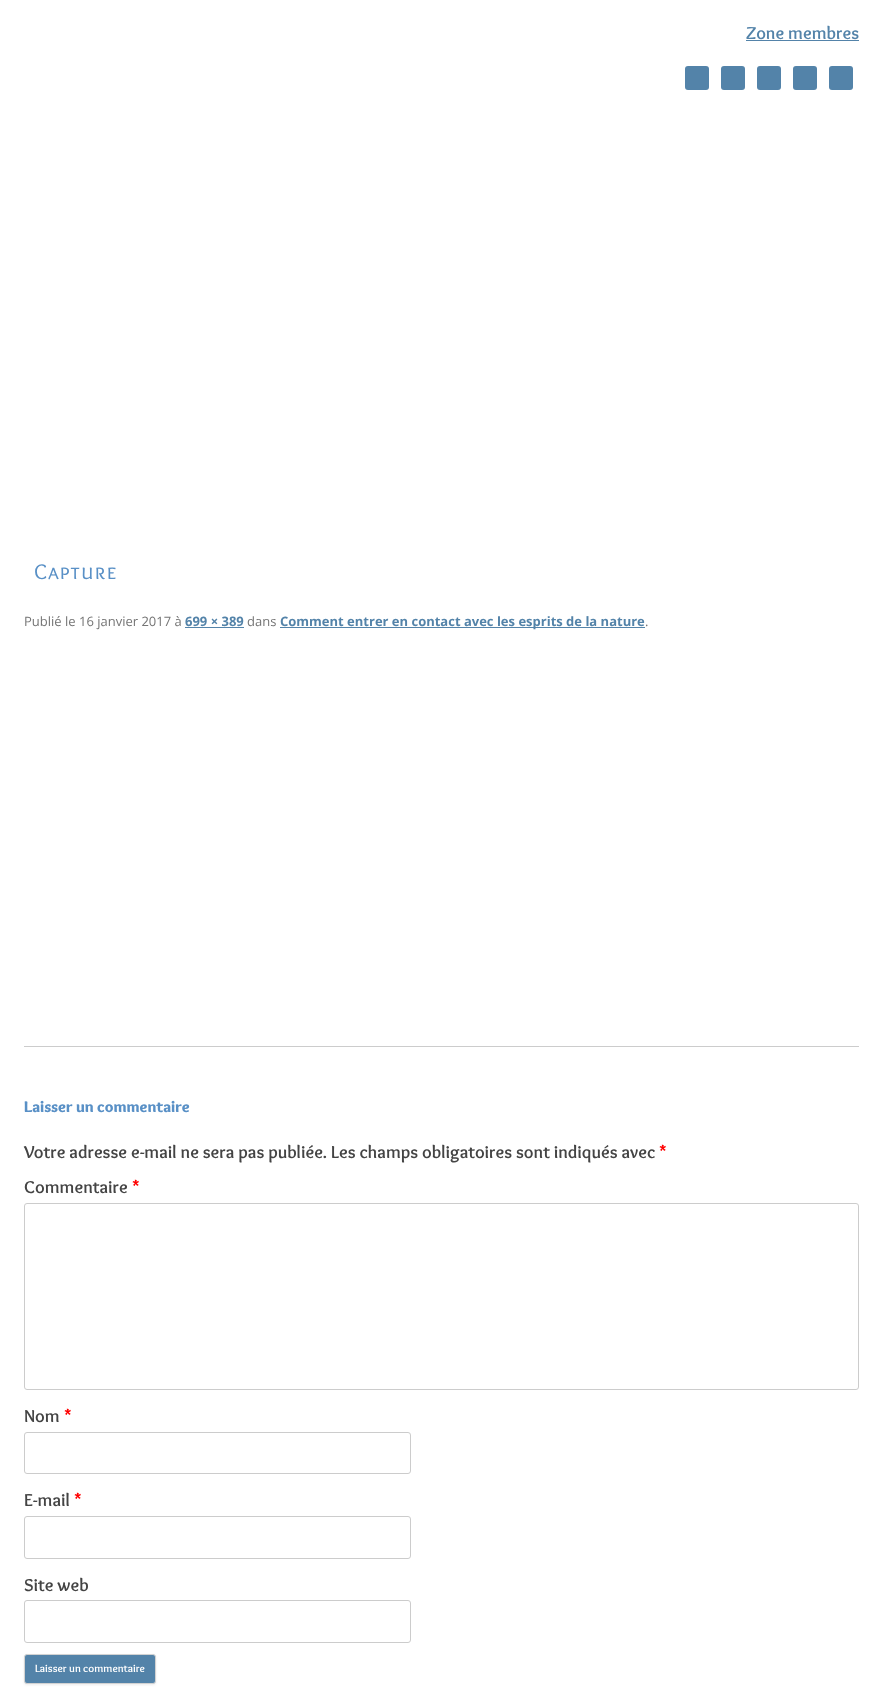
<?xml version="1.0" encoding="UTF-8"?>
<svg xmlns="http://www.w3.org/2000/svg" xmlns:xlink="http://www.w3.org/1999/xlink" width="883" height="1699">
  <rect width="100%" height="100%" fill="#ffffff" />
  <rect x="746" y="40" width="113" height="1" fill="#5383a9" />
  <rect x="685" y="66" width="24" height="24" rx="3" fill="#5383a9" />
  <rect x="721" y="66" width="24" height="24" rx="3" fill="#5383a9" />
  <rect x="757" y="66" width="24" height="24" rx="3" fill="#5383a9" />
  <rect x="793" y="66" width="24" height="24" rx="3" fill="#5383a9" />
  <rect x="829" y="66" width="24" height="24" rx="3" fill="#5383a9" />
  <rect x="24" y="1046" width="835" height="1" fill="#cccccc" />
  <rect x="185" y="627" width="59" height="1" fill="#5383a9" />
  <rect x="280" y="627" width="365" height="1" fill="#5383a9" />
  <rect x="24.5" y="1203.5" width="834" height="186" rx="2.5" fill="none" stroke="#cccccc" />
  <rect x="24.5" y="1432.5" width="386" height="41" rx="2.5" fill="none" stroke="#cccccc" />
  <rect x="24.5" y="1516.5" width="386" height="42" rx="2.5" fill="none" stroke="#cccccc" />
  <rect x="24.5" y="1600.5" width="386" height="42" rx="2.5" fill="none" stroke="#cccccc" />
  <rect x="24" y="1655" width="132" height="30" rx="3" fill="#404040" fill-opacity="0.1" filter="blur(1px)" />
  <rect x="24.5" y="1654.5" width="131" height="29" rx="2.5" fill="#5383a9" stroke="#d2d2d2" />
  <text x="746" y="39" style="font-family: Overlock; font-size: 18px; font-weight: bold; fill: #5383a9">Zone membres</text>
  <text x="34" y="579" style="font-family: Overlock SC; font-size: 22px; letter-spacing: 1px; fill: #5990c6">Capture</text>
  <text x="24" y="626" style="font-family: Open Sans; font-size: 13px; fill: #757575">Publié le 16 janvier 2017 à</text>
  <text x="185" y="626" style="font-family: Open Sans; font-size: 13px; font-weight: bold; fill: #5383a9">699 × 389</text>
  <text x="247" y="626" style="font-family: Open Sans; font-size: 13px; fill: #757575">dans</text>
  <text x="280" y="626" style="font-family: Open Sans; font-size: 13px; font-weight: bold; fill: #5383a9">Comment entrer en contact avec les esprits de la nature</text>
  <text x="645" y="626" style="font-family: Open Sans; font-size: 13px; fill: #757575">.</text>
  <text x="24" y="1112" style="font-family: Overlock; font-size: 16px; font-weight: 900; fill: #5990c6">Laisser un commentaire</text>
  <text x="24" y="1158" style="font-family: Overlock; font-size: 18px; font-weight: bold; fill: #444444">Votre adresse e-mail ne sera pas publiée. Les champs obligatoires sont indiqués avec</text>
  <text x="659" y="1158" style="font-family: Overlock; font-size: 18px; font-weight: bold; fill: #ff0000">*</text>
  <text x="24" y="1193" style="font-family: Overlock; font-size: 18px; font-weight: bold; fill: #444444">Commentaire</text>
  <text x="132" y="1193" style="font-family: Overlock; font-size: 18px; font-weight: bold; fill: #ff0000">*</text>
  <text x="24" y="1422" style="font-family: Overlock; font-size: 18px; font-weight: bold; fill: #444444">Nom</text>
  <text x="64" y="1422" style="font-family: Overlock; font-size: 18px; font-weight: bold; fill: #ff0000">*</text>
  <text x="24" y="1506" style="font-family: Overlock; font-size: 18px; font-weight: bold; fill: #444444">E-mail</text>
  <text x="74" y="1506" style="font-family: Overlock; font-size: 18px; font-weight: bold; fill: #ff0000">*</text>
  <text x="24" y="1591" style="font-family: Overlock; font-size: 18px; font-weight: bold; fill: #444444">Site web</text>
  <text x="35" y="1672" style="font-family: Overlock; font-size: 11px; font-weight: bold; fill: #ffffff">Laisser un commentaire</text>
</svg>
